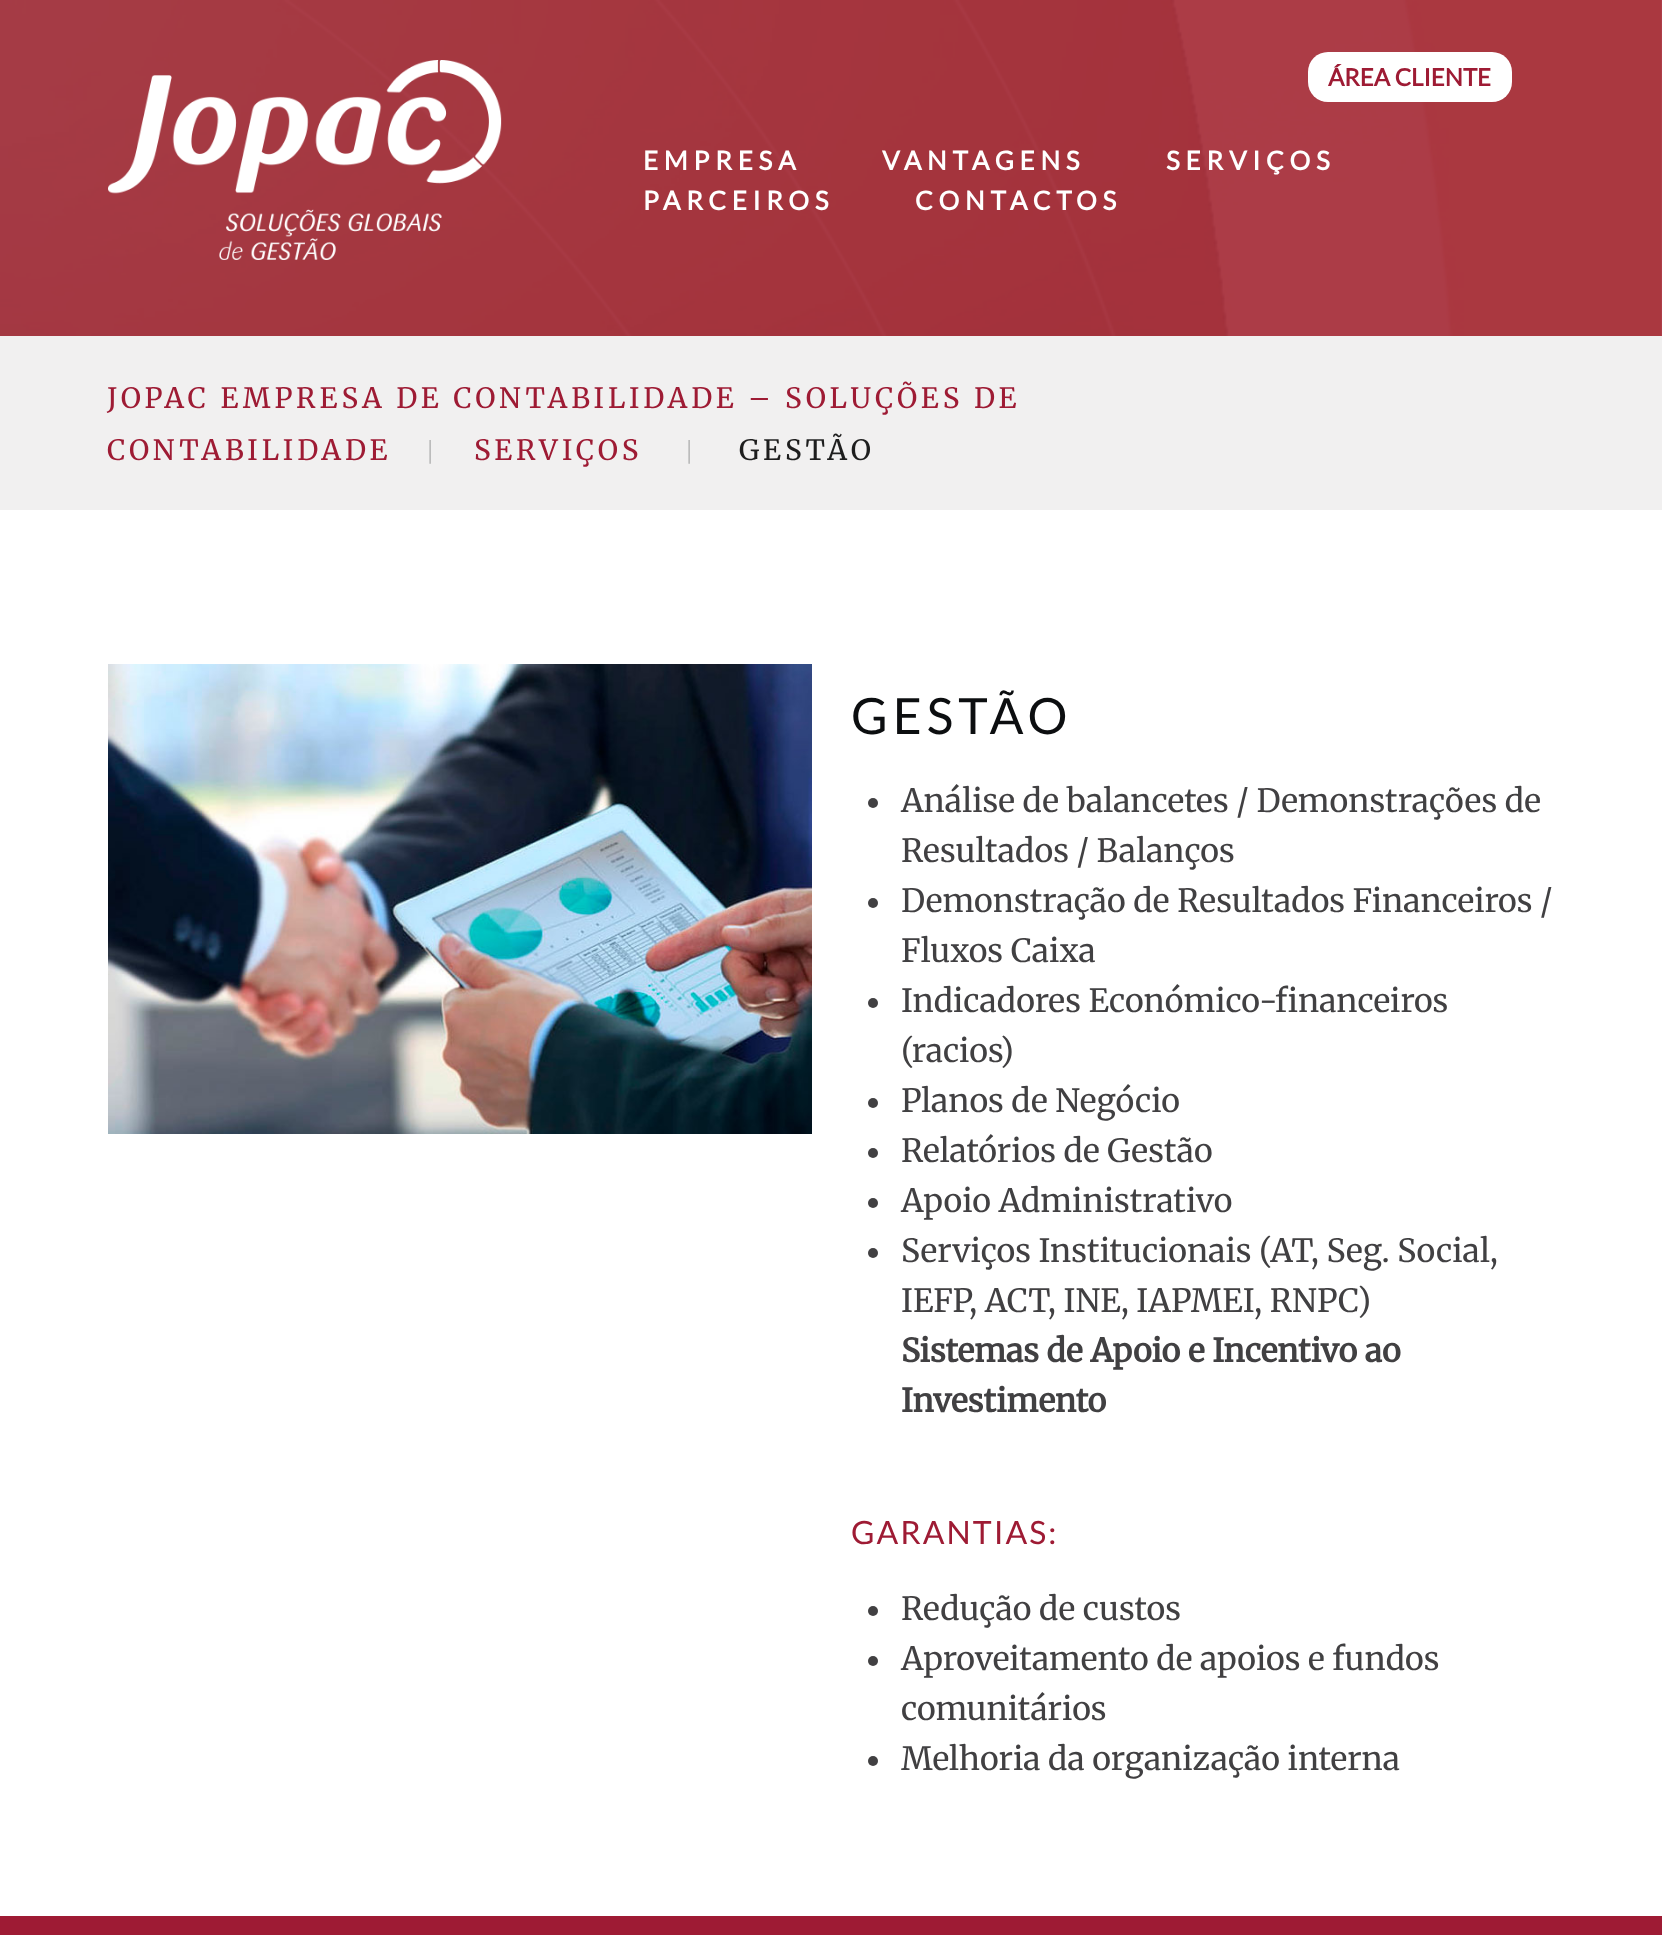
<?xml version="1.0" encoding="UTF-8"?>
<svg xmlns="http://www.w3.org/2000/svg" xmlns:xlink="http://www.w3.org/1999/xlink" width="1662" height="1935">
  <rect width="100%" height="100%" fill="#ffffff" />
  <image x="0" y="0" width="1662" height="336" xlink:href="image1.png" />
  <rect width="1662" height="336" fill="#a11e32" fill-opacity="0.8" />
  <rect x="1308" y="52" width="204" height="50" rx="20" fill="#ffffff" />
  <image x="108" y="60" width="394" height="200" xlink:href="image2.png" />
  <rect y="336" width="108" height="174" fill="#f1f0f0" />
  <rect x="108" y="336" width="1554" height="174" fill="#f1f0f0" />
  <image x="108" y="664" width="704" height="470" xlink:href="image3.png" />
  <circle cx="873" cy="803" r="5" fill="#414042" />
  <circle cx="873" cy="903" r="5" fill="#414042" />
  <circle cx="873" cy="1003" r="5" fill="#414042" />
  <circle cx="873" cy="1103" r="5" fill="#414042" />
  <circle cx="873" cy="1153" r="5" fill="#414042" />
  <circle cx="873" cy="1203" r="5" fill="#414042" />
  <circle cx="873" cy="1253" r="5" fill="#414042" />
  <circle cx="873" cy="1611" r="5" fill="#414042" />
  <circle cx="873" cy="1661" r="5" fill="#414042" />
  <circle cx="873" cy="1761" r="5" fill="#414042" />
  <rect y="1916" width="1662" height="19" fill="#9e1b34" />
  <text x="1328" y="86" style="font-family: Lato; font-size: 24px; font-weight: bold; fill: #9e1b34">ÁREA CLIENTE</text>
  <text x="643" y="170" style="font-family: Lato; font-size: 26px; font-weight: bold; letter-spacing: 5.75px; fill: #ffffff">EMPRESA</text>
  <text x="882" y="170" style="font-family: Lato; font-size: 26px; font-weight: bold; letter-spacing: 5.75px; fill: #ffffff">VANTAGENS</text>
  <text x="1166" y="170" style="font-family: Lato; font-size: 26px; font-weight: bold; letter-spacing: 5.75px; fill: #ffffff">SERVIÇOS</text>
  <text x="643" y="210" style="font-family: Lato; font-size: 26px; font-weight: bold; letter-spacing: 5.75px; fill: #ffffff">PARCEIROS</text>
  <text x="915" y="210" style="font-family: Lato; font-size: 26px; font-weight: bold; letter-spacing: 5.75px; fill: #ffffff">CONTACTOS</text>
  <text x="107" y="408" style="font-family: Merriweather; font-size: 28px; font-weight: 300; letter-spacing: 4px; fill: #9e1b34">JOPAC EMPRESA DE CONTABILIDADE – SOLUÇÕES DE</text>
  <text x="107" y="460" style="font-family: Merriweather; font-size: 28px; font-weight: 300; letter-spacing: 4px; fill: #9e1b34">CONTABILIDADE</text>
  <text x="427" y="460" style="font-family: Roboto Condensed; font-size: 28px; font-weight: 300; letter-spacing: 4px; fill: #b4b4b4">|</text>
  <text x="474" y="460" style="font-family: Merriweather; font-size: 28px; font-weight: 300; letter-spacing: 4px; fill: #9e1b34">SERVIÇOS</text>
  <text x="686" y="460" style="font-family: Roboto Condensed; font-size: 28px; font-weight: 300; letter-spacing: 4px; fill: #b4b4b4">|</text>
  <text x="739" y="460" style="font-family: Merriweather; font-size: 28px; font-weight: 300; letter-spacing: 4px; fill: #1e1e1e">GESTÃO</text>
  <text x="851" y="734" style="font-family: Lato; font-size: 50px; letter-spacing: 5px; fill: #0c0e10">GESTÃO</text>
  <text x="901" y="812" style="font-family: Merriweather; font-size: 32px; font-weight: 300; fill: #414042">Análise de balancetes / Demonstrações de</text>
  <text x="901" y="862" style="font-family: Merriweather; font-size: 32px; font-weight: 300; fill: #414042">Resultados / Balanços</text>
  <text x="901" y="912" style="font-family: Merriweather; font-size: 32px; font-weight: 300; fill: #414042">Demonstração de Resultados Financeiros /</text>
  <text x="901" y="962" style="font-family: Merriweather; font-size: 32px; font-weight: 300; fill: #414042">Fluxos Caixa</text>
  <text x="901" y="1012" style="font-family: Merriweather; font-size: 32px; font-weight: 300; fill: #414042">Indicadores Económico-financeiros</text>
  <text x="901" y="1062" style="font-family: Merriweather; font-size: 32px; font-weight: 300; fill: #414042">(racios)</text>
  <text x="901" y="1112" style="font-family: Merriweather; font-size: 32px; font-weight: 300; fill: #414042">Planos de Negócio</text>
  <text x="901" y="1162" style="font-family: Merriweather; font-size: 32px; font-weight: 300; fill: #414042">Relatórios de Gestão</text>
  <text x="901" y="1212" style="font-family: Merriweather; font-size: 32px; font-weight: 300; fill: #414042">Apoio Administrativo</text>
  <text x="901" y="1262" style="font-family: Merriweather; font-size: 32px; font-weight: 300; fill: #414042">Serviços Institucionais (AT, Seg. Social,</text>
  <text x="901" y="1312" style="font-family: Merriweather; font-size: 32px; font-weight: 300; fill: #414042">IEFP, ACT, INE, IAPMEI, RNPC)</text>
  <text x="901" y="1362" style="font-family: Merriweather; font-size: 32px; font-weight: bold; fill: #414042">Sistemas de Apoio e Incentivo ao</text>
  <text x="901" y="1412" style="font-family: Merriweather; font-size: 32px; font-weight: bold; fill: #414042">Investimento</text>
  <text x="851" y="1544" style="font-family: Lato; font-size: 32px; letter-spacing: 2px; fill: #9e1b34">GARANTIAS:</text>
  <text x="901" y="1620" style="font-family: Merriweather; font-size: 32px; font-weight: 300; fill: #414042">Redução de custos</text>
  <text x="901" y="1670" style="font-family: Merriweather; font-size: 32px; font-weight: 300; fill: #414042">Aproveitamento de apoios e fundos</text>
  <text x="901" y="1720" style="font-family: Merriweather; font-size: 32px; font-weight: 300; fill: #414042">comunitários</text>
  <text x="901" y="1770" style="font-family: Merriweather; font-size: 32px; font-weight: 300; fill: #414042">Melhoria da organização interna</text>
</svg>
